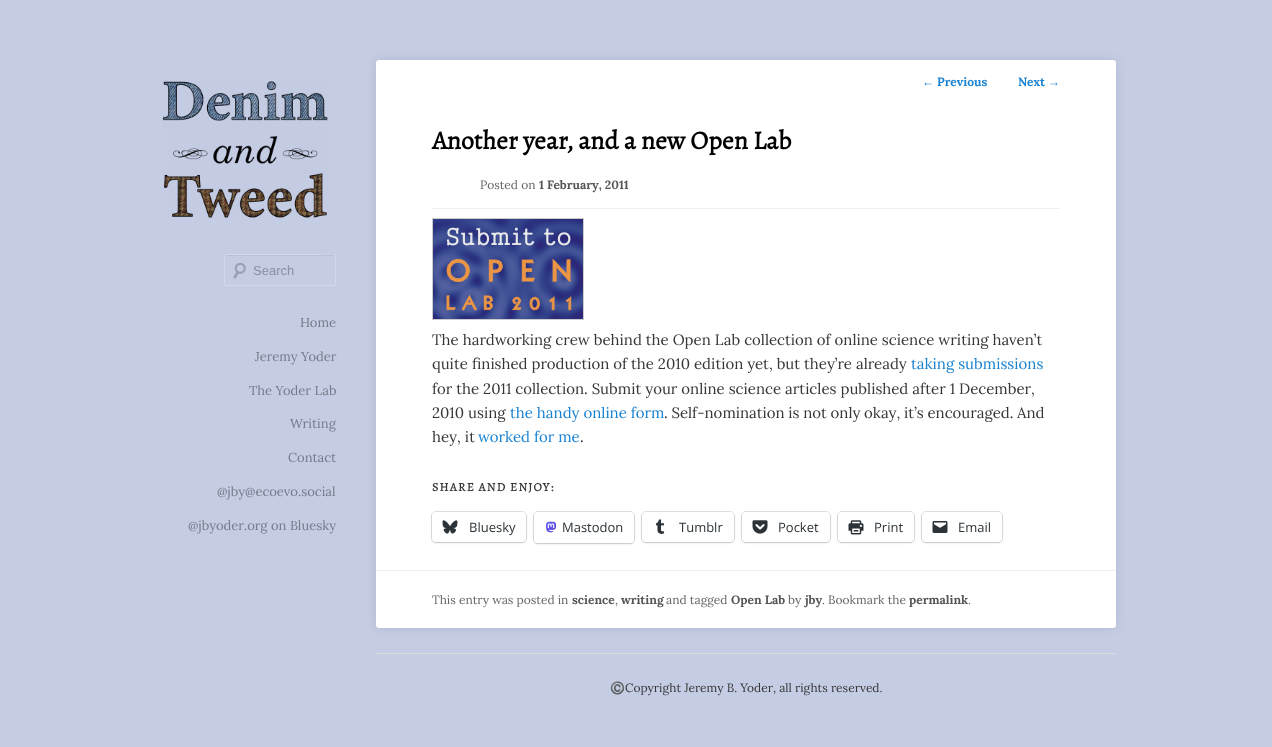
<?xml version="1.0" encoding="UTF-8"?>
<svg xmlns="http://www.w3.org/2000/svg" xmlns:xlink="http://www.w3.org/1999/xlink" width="1272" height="747">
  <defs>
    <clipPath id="clip1"><rect x="156" y="254" width="180" height="32" /></clipPath>
  </defs>
  <rect width="100%" height="100%" fill="#c5cde5" />
  <image x="163" y="81" width="165" height="137" xlink:href="image1.png" />
  <image x="233" y="262" width="13" height="17" xlink:href="image2.png" />
  <g clip-path="url(#clip1)">
    <path d="M 226 256 h 109 v 1 c 0 -7 -15 -2 -19 -2 h -90 l -1 2 c 0 -1 0 -1 1 -1 z" fill="#b9c1d7" />
  </g>
  <rect x="224.5" y="254.5" width="111" height="31" rx="1.5" fill="none" stroke="#e8ebf5" stroke-opacity="0.4" />
  <rect x="376" y="60" width="740" height="568" rx="3" fill="#000000" fill-opacity="0.1" filter="blur(5px)" />
  <rect x="376" y="60" width="740" height="568" rx="3" fill="#ffffff" />
  <rect x="432" y="208" width="628" height="1" fill="#eeeeee" />
  <rect x="376" y="570" width="740" height="1" fill="#eeeeee" />
  <rect x="432.5" y="218.5" width="151" height="101" fill="none" stroke="#cccccc" />
  <image x="433" y="219" width="150" height="100" xlink:href="image3.png" />
  <rect x="431.5" y="511.5" width="95" height="31" rx="4.5" fill="none" stroke="#e0e0e0" />
  <rect x="432" y="513" width="94" height="30" rx="4" fill="#000000" fill-opacity="0.12" filter="blur(1px)" />
  <rect x="432" y="512" width="94" height="30" rx="4" fill="#ffffff" />
  <image x="442" y="520" width="16" height="14" xlink:href="image4.png" />
  <rect x="533.5" y="511.5" width="101" height="32" rx="4.5" fill="none" stroke="#e0e0e0" />
  <rect x="534" y="513" width="100" height="31" rx="4" fill="#000000" fill-opacity="0.12" filter="blur(1px)" />
  <rect x="534" y="512" width="100" height="31" rx="4" fill="#ffffff" />
  <image x="546" y="521" width="10" height="12" xlink:href="image5.png" />
  <rect x="641.5" y="511.5" width="93" height="31" rx="4.5" fill="none" stroke="#e0e0e0" />
  <rect x="642" y="513" width="92" height="30" rx="4" fill="#000000" fill-opacity="0.12" filter="blur(1px)" />
  <rect x="642" y="512" width="92" height="30" rx="4" fill="#ffffff" />
  <image x="655" y="519" width="10" height="15" xlink:href="image6.png" />
  <rect x="741.5" y="511.5" width="89" height="31" rx="4.5" fill="none" stroke="#e0e0e0" />
  <rect x="742" y="513" width="88" height="30" rx="4" fill="#000000" fill-opacity="0.12" filter="blur(1px)" />
  <rect x="742" y="512" width="88" height="30" rx="4" fill="#ffffff" />
  <image x="752" y="520" width="16" height="14" xlink:href="image7.png" />
  <rect x="837.5" y="511.5" width="77" height="31" rx="4.5" fill="none" stroke="#e0e0e0" />
  <rect x="838" y="513" width="76" height="30" rx="4" fill="#000000" fill-opacity="0.12" filter="blur(1px)" />
  <rect x="838" y="512" width="76" height="30" rx="4" fill="#ffffff" />
  <image x="848" y="520" width="16" height="15" xlink:href="image8.png" />
  <rect x="921.5" y="511.5" width="81" height="31" rx="4.5" fill="none" stroke="#e0e0e0" />
  <rect x="922" y="513" width="80" height="30" rx="4" fill="#000000" fill-opacity="0.12" filter="blur(1px)" />
  <rect x="922" y="512" width="80" height="30" rx="4" fill="#ffffff" />
  <image x="932" y="521" width="16" height="12" xlink:href="image9.png" />
  <rect x="376" y="653" width="740" height="1" fill="#dddddd" />
  <text x="253" y="275" style="font-family: Liberation Sans; font-size: 13px; fill: #8a90a1">Search</text>
  <text x="300" y="327" style="font-family: Lora; font-size: 13px; fill: #767b89">Home</text>
  <text x="255" y="361" style="font-family: Lora; font-size: 13px; fill: #767b89">Jeremy Yoder</text>
  <text x="249" y="395" style="font-family: Lora; font-size: 13px; fill: #767b89">The Yoder Lab</text>
  <text x="290" y="428" style="font-family: Lora; font-size: 13px; fill: #767b89">Writing</text>
  <text x="288" y="462" style="font-family: Lora; font-size: 13px; fill: #767b89">Contact</text>
  <text x="217" y="496" style="font-family: Lora; font-size: 13px; fill: #767b89">@jby@ecoevo.social</text>
  <text x="188" y="530" style="font-family: Lora; font-size: 13px; fill: #767b89">@jbyoder.org on Bluesky</text>
  <text x="922" y="86" style="font-family: Liberation Sans; font-size: 12px; fill: #1982d1">←</text>
  <text x="937" y="86" style="font-family: Lora; font-size: 12px; font-weight: bold; fill: #1982d1">Previous</text>
  <text x="1018" y="86" style="font-family: Lora; font-size: 12px; font-weight: bold; fill: #1982d1">Next</text>
  <text x="1048" y="86" style="font-family: Liberation Sans; font-size: 12px; fill: #1982d1">→</text>
  <text x="432" y="149" style="font-family: Alegreya; font-size: 26px; font-weight: bold; fill: #000000">Another year, and a new Open Lab</text>
  <text x="480" y="189" style="font-family: Lora; font-size: 12px; fill: #666666">Posted on</text>
  <text x="539" y="189" style="font-family: Lora; font-size: 12px; font-weight: bold; fill: #555555">1 February, 2011</text>
  <text x="432" y="345" style="font-family: Lora; font-size: 15px; fill: #373737">The hardworking crew behind the Open Lab collection of online science writing haven’t</text>
  <text x="432" y="369" style="font-family: Lora; font-size: 15px; fill: #373737">quite finished production of the 2010 edition yet, but they’re already</text>
  <text x="911" y="369" style="font-family: Lora; font-size: 15px; fill: #1982d1">taking submissions</text>
  <text x="432" y="394" style="font-family: Lora; font-size: 15px; fill: #373737">for the 2011 collection. Submit your online science articles published after 1 December,</text>
  <text x="432" y="418" style="font-family: Lora; font-size: 15px; fill: #373737">2010 using</text>
  <text x="510" y="418" style="font-family: Lora; font-size: 15px; fill: #1982d1">the handy online form</text>
  <text x="664" y="418" word-spacing="-0.25" style="font-family: Lora; font-size: 15px; fill: #373737">. Self-nomination is not only okay, it’s encouraged. And</text>
  <text x="432" y="442" style="font-family: Lora; font-size: 15px; fill: #373737">hey, it</text>
  <text x="478" y="442" style="font-family: Lora; font-size: 15px; fill: #1982d1">worked for me</text>
  <text x="580" y="442" style="font-family: Lora; font-size: 15px; fill: #373737">.</text>
  <text x="432" y="491" style="font-family: Alegreya; font-size: 12px; font-weight: bold; letter-spacing: 1.25px; fill: #373737">SHARE AND ENJOY:</text>
  <text x="469" y="532" style="font-family: Open Sans; font-size: 13px; fill: #2c3338">Bluesky</text>
  <text x="562" y="532" style="font-family: Open Sans; font-size: 13px; fill: #2c3338">Mastodon</text>
  <text x="679" y="532" style="font-family: Open Sans; font-size: 13px; fill: #2c3338">Tumblr</text>
  <text x="778" y="532" style="font-family: Open Sans; font-size: 13px; fill: #2c3338">Pocket</text>
  <text x="874" y="532" style="font-family: Open Sans; font-size: 13px; fill: #2c3338">Print</text>
  <text x="958" y="532" style="font-family: Open Sans; font-size: 13px; fill: #2c3338">Email</text>
  <text x="432" y="604" style="font-family: Lora; font-size: 12px; fill: #666666">This entry was posted in</text>
  <text x="572" y="604" style="font-family: Lora; font-size: 12px; font-weight: bold; fill: #555555">science</text>
  <text x="615" y="604" style="font-family: Lora; font-size: 12px; fill: #666666">,</text>
  <text x="621" y="604" style="font-family: Lora; font-size: 12px; font-weight: bold; fill: #555555">writing</text>
  <text x="666" y="604" style="font-family: Lora; font-size: 12px; fill: #666666">and tagged</text>
  <text x="731" y="604" style="font-family: Lora; font-size: 12px; font-weight: bold; fill: #555555">Open Lab</text>
  <text x="788" y="604" style="font-family: Lora; font-size: 12px; fill: #666666">by</text>
  <text x="805" y="604" style="font-family: Lora; font-size: 12px; font-weight: bold; fill: #555555">jby</text>
  <text x="822" y="604" style="font-family: Lora; font-size: 12px; fill: #666666">. Bookmark the</text>
  <text x="909" y="604" style="font-family: Lora; font-size: 12px; font-weight: bold; fill: #555555">permalink</text>
  <text x="968" y="604" style="font-family: Lora; font-size: 12px; fill: #666666">.</text>
  <text x="610" y="692" style="font-family: Noto Color Emoji; font-size: 12px; fill: #373737">©️</text>
  <text x="625" y="692" style="font-family: Lora; font-size: 12px; fill: #373737">Copyright Jeremy B. Yoder, all rights reserved.</text>
</svg>
